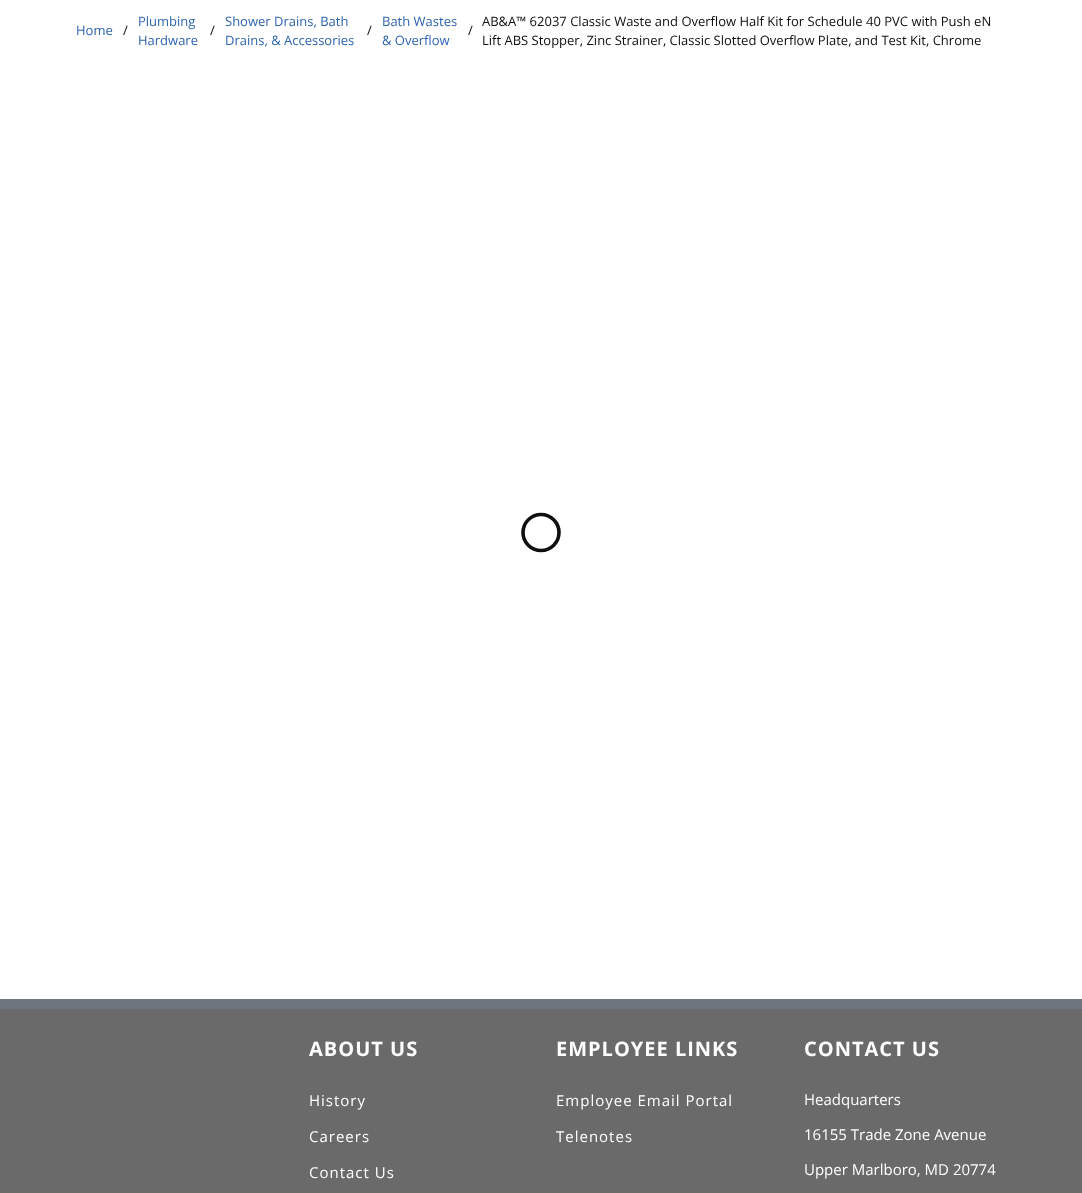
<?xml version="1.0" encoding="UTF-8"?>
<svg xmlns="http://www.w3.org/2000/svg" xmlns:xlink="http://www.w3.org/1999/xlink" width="1082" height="1193">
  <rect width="100%" height="100%" fill="#ffffff" />
  <path d="M 541 514.5 c 10 0 18 8 18 18 c 0 10 -8 18 -18 18 c -10 0 -18 -8 -18 -18 c 0 -9.5 7.5 -17.5 17 -18" fill="none" stroke="#0f0f0f" stroke-width="3.6" stroke-linecap="round" />
  <rect y="1009" width="1082" height="184" fill="#6a6a6a" />
  <rect y="999" width="1082" height="10" fill="#6c757d" />
  <text x="76" y="35" style="font-family: Open Sans; font-size: 13px; fill: #2e64b0">Home</text>
  <text x="123" y="35" style="font-family: Open Sans; font-size: 13px; fill: #0f0f0f">/</text>
  <text x="138" y="26" style="font-family: Open Sans; font-size: 13px; fill: #2e64b0">Plumbing</text>
  <text x="138" y="45" style="font-family: Open Sans; font-size: 13px; fill: #2e64b0">Hardware</text>
  <text x="210" y="35" style="font-family: Open Sans; font-size: 13px; fill: #0f0f0f">/</text>
  <text x="225" y="26" style="font-family: Open Sans; font-size: 13px; fill: #2e64b0">Shower Drains, Bath</text>
  <text x="225" y="45" style="font-family: Open Sans; font-size: 13px; fill: #2e64b0">Drains, &amp; Accessories</text>
  <text x="367" y="35" style="font-family: Open Sans; font-size: 13px; fill: #0f0f0f">/</text>
  <text x="382" y="26" style="font-family: Open Sans; font-size: 13px; fill: #2e64b0">Bath Wastes</text>
  <text x="382" y="45" style="font-family: Open Sans; font-size: 13px; fill: #2e64b0">&amp; Overflow</text>
  <text x="468" y="35" style="font-family: Open Sans; font-size: 13px; fill: #0f0f0f">/</text>
  <text x="482" y="26" style="font-family: Open Sans; font-size: 13px; fill: #0f0f0f">AB&amp;A™ 62037 Classic Waste and Overflow Half Kit for Schedule 40 PVC with Push eN</text>
  <text x="482" y="45" style="font-family: Open Sans; font-size: 13px; fill: #0f0f0f">Lift ABS Stopper, Zinc Strainer, Classic Slotted Overflow Plate, and Test Kit, Chrome</text>
  <text x="309" y="1056" style="font-family: Open Sans; font-size: 20px; font-weight: bold; letter-spacing: 1px; fill: #ffffff">ABOUT US</text>
  <text x="309" y="1106" style="font-family: Open Sans; font-size: 15px; letter-spacing: 1px; fill: #ffffff">History</text>
  <text x="309" y="1142" style="font-family: Open Sans; font-size: 15px; letter-spacing: 1px; fill: #ffffff">Careers</text>
  <text x="309" y="1178" style="font-family: Open Sans; font-size: 15px; letter-spacing: 1px; fill: #ffffff">Contact Us</text>
  <text x="556" y="1056" style="font-family: Open Sans; font-size: 20px; font-weight: bold; letter-spacing: 1px; fill: #ffffff">EMPLOYEE LINKS</text>
  <text x="556" y="1106" style="font-family: Open Sans; font-size: 15px; letter-spacing: 1px; fill: #ffffff">Employee Email Portal</text>
  <text x="556" y="1142" style="font-family: Open Sans; font-size: 15px; letter-spacing: 1px; fill: #ffffff">Telenotes</text>
  <text x="804" y="1056" style="font-family: Open Sans; font-size: 20px; font-weight: bold; letter-spacing: 1px; fill: #ffffff">CONTACT US</text>
  <text x="804" y="1105" style="font-family: Open Sans; font-size: 15px; fill: #ffffff">Headquarters</text>
  <text x="804" y="1140" style="font-family: Open Sans; font-size: 15px; fill: #ffffff">16155 Trade Zone Avenue</text>
  <text x="804" y="1175" style="font-family: Open Sans; font-size: 15px; fill: #ffffff">Upper Marlboro, MD 20774</text>
</svg>
